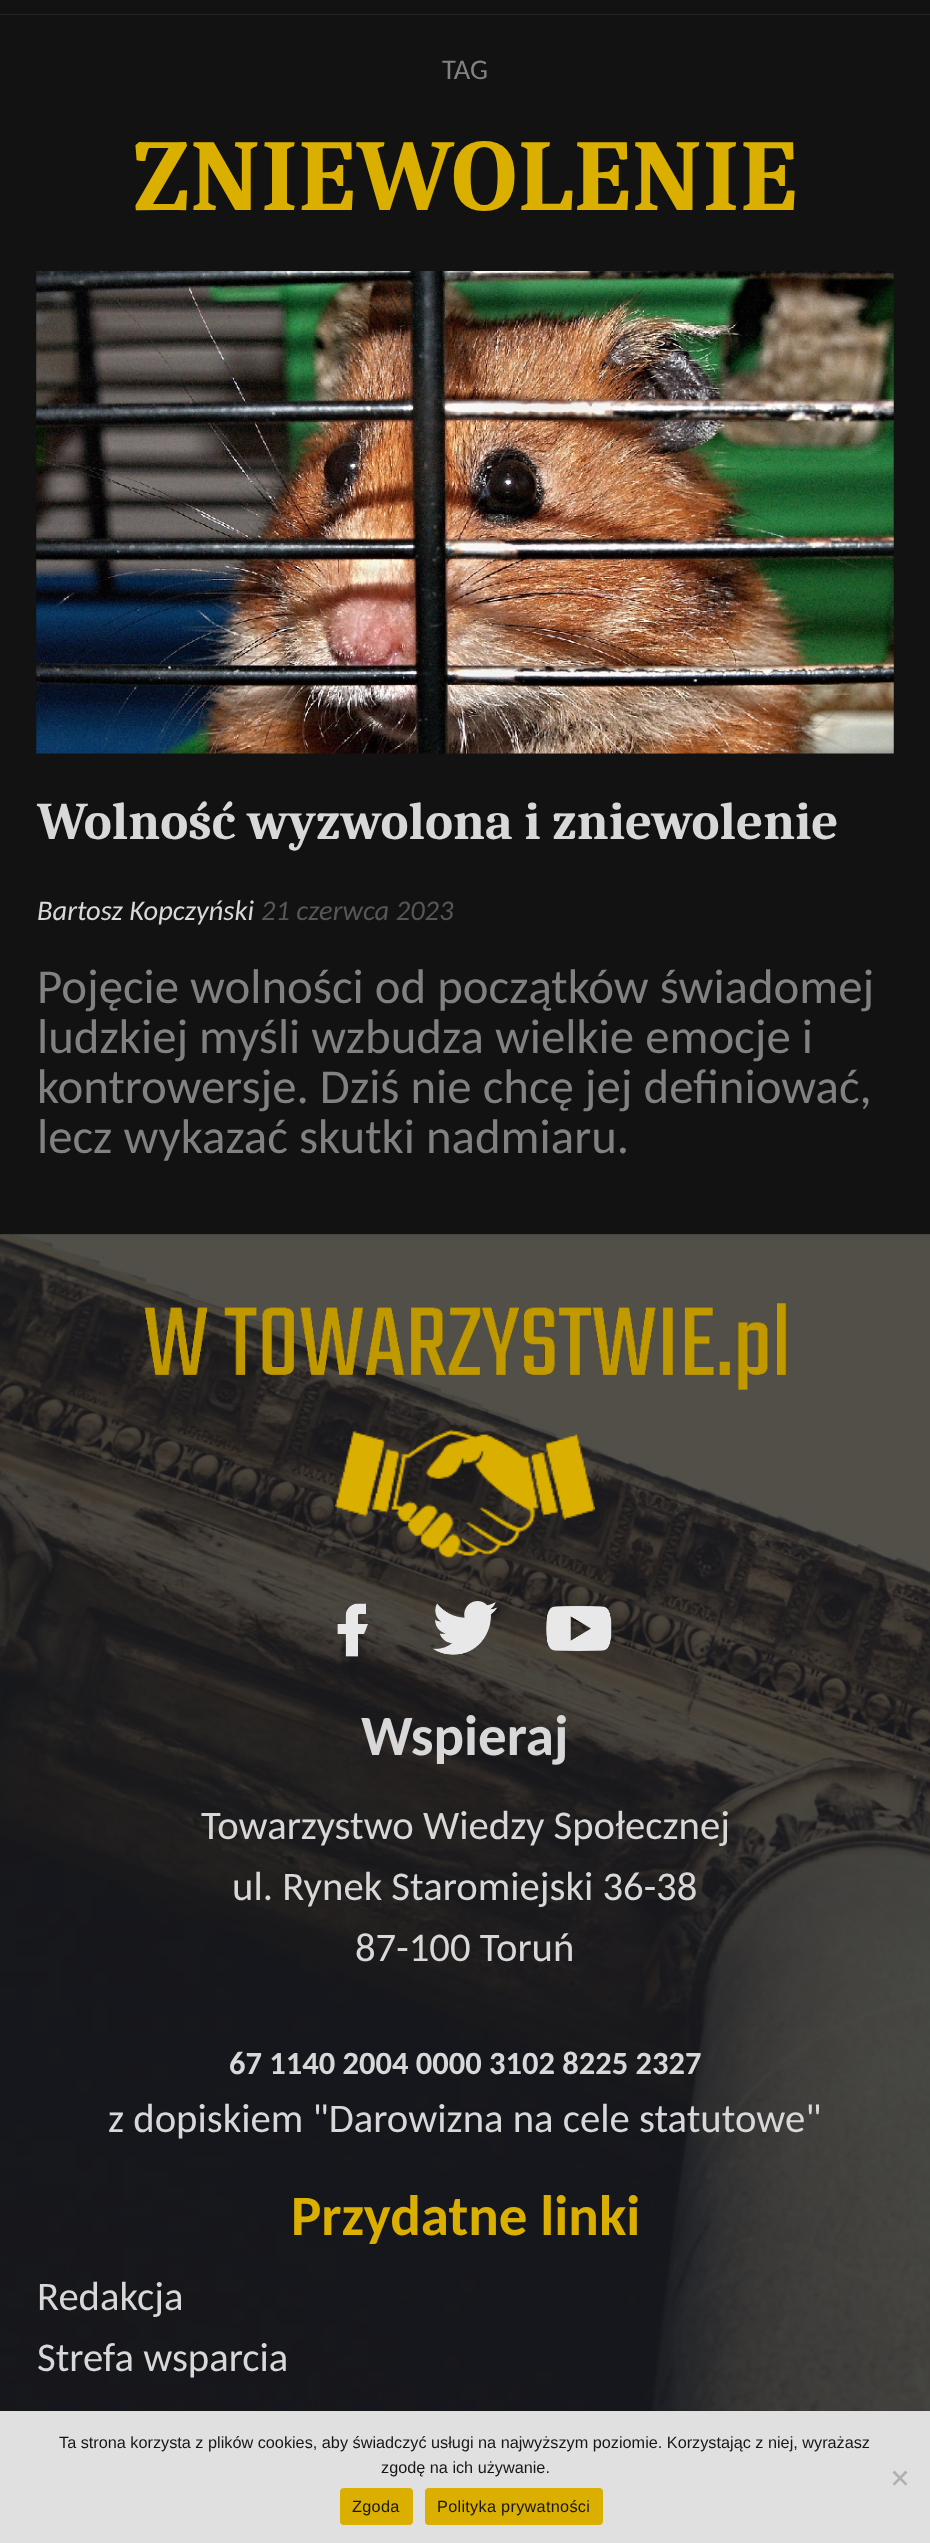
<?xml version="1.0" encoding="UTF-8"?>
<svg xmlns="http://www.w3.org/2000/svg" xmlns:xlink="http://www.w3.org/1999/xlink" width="930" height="2543">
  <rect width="100%" height="100%" fill="#121212" />
  <rect y="14" width="930" height="1" fill="#242424" />
  <image x="36" y="271" width="858" height="483" xlink:href="image1.png" />
  <image x="0" y="1234" width="930" height="1177" xlink:href="image2.png" />
  <image x="144" y="1303" width="643" height="87" xlink:href="image3.png" />
  <image x="335" y="1429" width="260" height="130" xlink:href="image4.png" />
  <image x="337" y="1603" width="31" height="54" xlink:href="image5.png" />
  <image x="432" y="1601" width="66" height="54" xlink:href="image6.png" />
  <image x="546" y="1606" width="66" height="45" xlink:href="image7.png" />
  <rect y="2411" width="930" height="132" fill="#e0e0e0" />
  <path d="M 905.5 2470.5 l 2 2 l -13 13 l -2 -1.5 z" fill="#b0b0b0" />
  <path d="M 892.5 2472.5 l 2 -2 l 13 13.5 l -2 1.5 z" fill="#b0b0b0" />
  <rect x="340" y="2488" width="73" height="37" rx="4" fill="#dbaf00" />
  <rect x="425" y="2488" width="178" height="37" rx="4" fill="#dbaf00" />
  <text x="442" y="79" style="font-family: Carlito; font-size: 28.5px; fill: #818181">TAG</text>
  <text x="133" y="210" style="font-family: Caladea; font-size: 101.75px; font-weight: bold; letter-spacing: 1px; fill: #dbaf00">ZNIEWOLENIE</text>
  <text x="37" y="839" style="font-family: Caladea; font-size: 52.9px; font-weight: bold; fill: #d8d8d8">Wolność wyzwolona i zniewolenie</text>
  <text x="37" y="920" style="font-family: Carlito; font-size: 28.5px; font-style: italic; fill: #d8d8d8">Bartosz Kopczyński</text>
  <text x="261" y="920" style="font-family: Carlito; font-size: 28.5px; font-style: italic; fill: #565656">21 czerwca 2023</text>
  <text x="37" y="1003" style="font-family: Carlito; font-size: 48.8px; fill: #818181">Pojęcie wolności od początków świadomej</text>
  <text x="37" y="1053" style="font-family: Carlito; font-size: 48.8px; fill: #818181">ludzkiej myśli wzbudza wielkie emocje i</text>
  <text x="37" y="1103" style="font-family: Carlito; font-size: 48.8px; fill: #818181">kontrowersje. Dziś nie chcę jej definiować,</text>
  <text x="37" y="1153" style="font-family: Carlito; font-size: 48.8px; fill: #818181">lecz wykazać skutki nadmiaru.</text>
  <text x="361" y="1755" style="font-family: Carlito; font-size: 57px; font-weight: bold; fill: #d8d8d8">Wspieraj</text>
  <text x="201" y="1839" style="font-family: Carlito; font-size: 40.7px; fill: #d8d8d8">Towarzystwo Wiedzy Społecznej</text>
  <text x="232" y="1900" style="font-family: Carlito; font-size: 40.7px; fill: #d8d8d8">ul. Rynek Staromiejski 36-38</text>
  <text x="355" y="1961" style="font-family: Carlito; font-size: 40.7px; fill: #d8d8d8">87-100 Toruń</text>
  <text x="229" y="2074" style="font-family: Carlito; font-size: 32.5px; font-weight: bold; fill: #d8d8d8">67 1140 2004 0000 3102 8225 2327</text>
  <text x="108" y="2132" style="font-family: Carlito; font-size: 40.7px; fill: #d8d8d8">z dopiskiem "Darowizna na cele statutowe"</text>
  <text x="291" y="2235" style="font-family: Carlito; font-size: 57px; font-weight: bold; fill: #dbaf00">Przydatne linki</text>
  <text x="37" y="2310" style="font-family: Carlito; font-size: 40.7px; fill: #d8d8d8">Redakcja</text>
  <text x="37" y="2371" style="font-family: Carlito; font-size: 40.7px; fill: #d8d8d8">Strefa wsparcia</text>
  <text x="59" y="2448" style="font-family: Liberation Sans; font-size: 16.25px; fill: #161616">Ta strona korzysta z plików cookies, aby świadczyć usługi na najwyższym poziomie. Korzystając z niej, wyrażasz</text>
  <text x="381" y="2473" style="font-family: Liberation Sans; font-size: 16.25px; fill: #161616">zgodę na ich używanie.</text>
  <text x="352" y="2512" style="font-family: Liberation Sans; font-size: 16.25px; letter-spacing: 0.3px; fill: #161616">Zgoda</text>
  <text x="437" y="2512" style="font-family: Liberation Sans; font-size: 16.25px; letter-spacing: 0.3px; fill: #161616">Polityka prywatności</text>
</svg>
